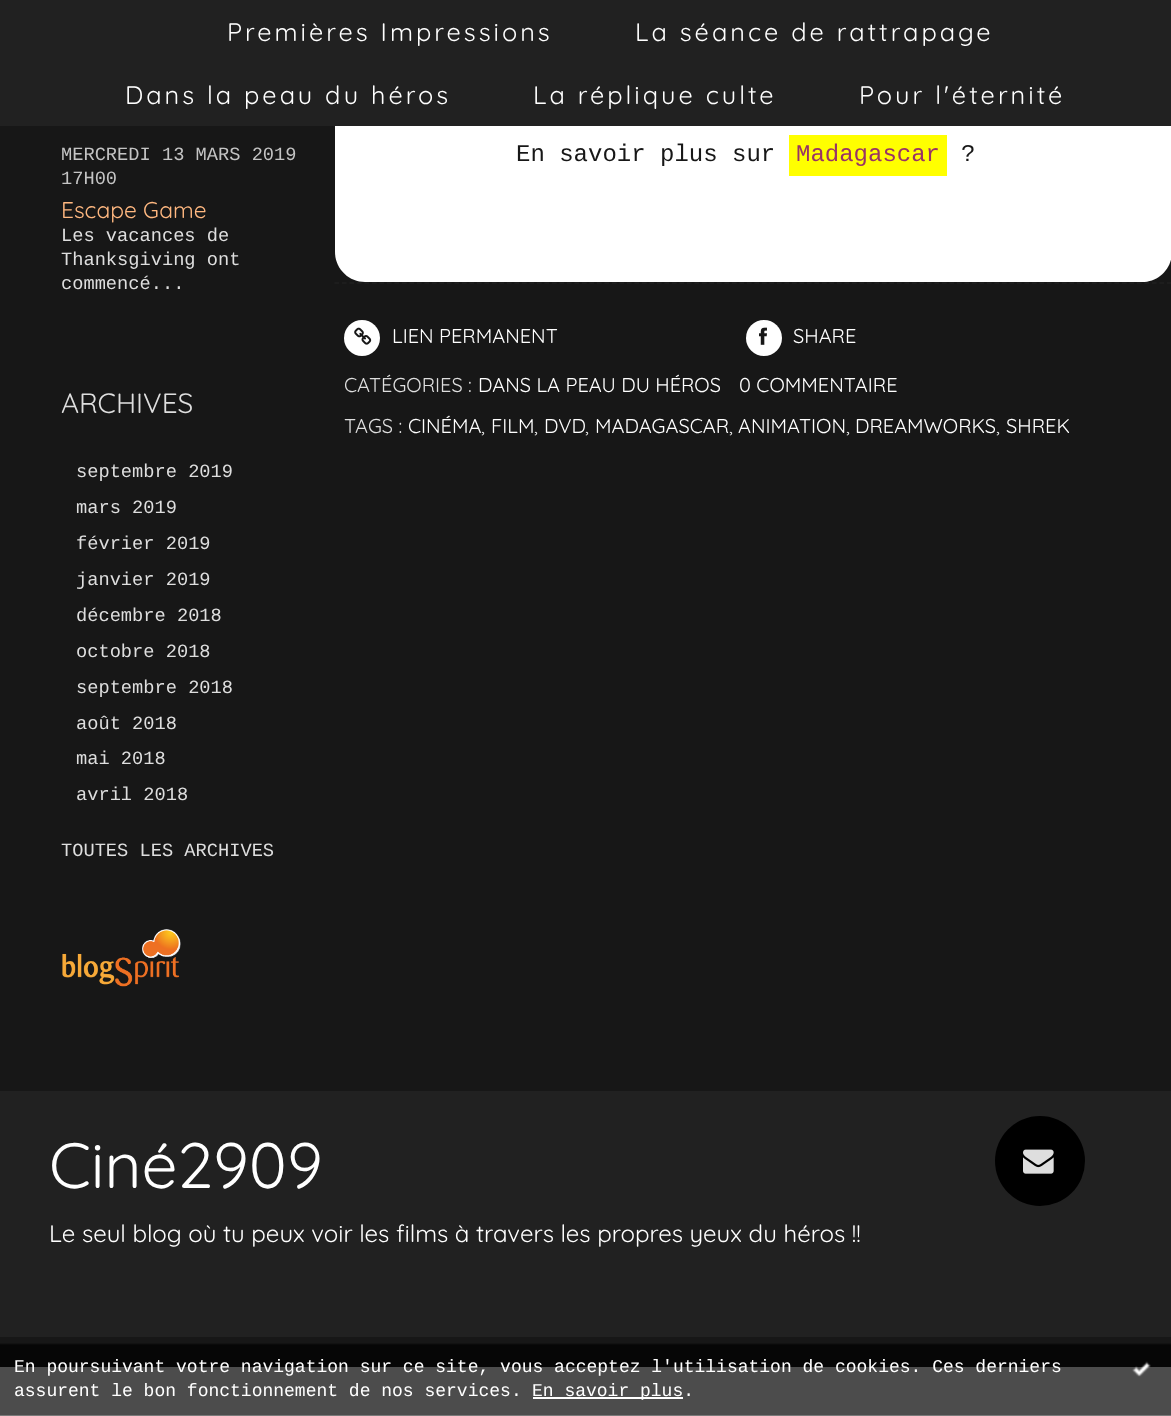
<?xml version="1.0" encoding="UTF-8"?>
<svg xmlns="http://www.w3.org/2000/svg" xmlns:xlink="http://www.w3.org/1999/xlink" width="1171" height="1416">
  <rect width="100%" height="100%" fill="#171717" />
  <path d="M 335 -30 h 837 v 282 c 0 16.5 -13.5 30 -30 30 h -777 c -16.5 0 -30 -13.5 -30 -30 z" fill="#ffffff" />
  <rect width="1171" height="126" fill="#212121" />
  <image x="62" y="929" width="119" height="58" xlink:href="image1.png" />
  <rect x="789" y="135" width="158" height="41" fill="#ffff00" />
  <path d="M 334.5 283 h 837" fill="none" stroke="#212121" stroke-width="1.5" stroke-dasharray="4.5 3" />
  <circle cx="362" cy="338" r="18" fill="#ffffff" />
  <image x="354" y="327" width="18" height="18" xlink:href="image2.png" />
  <circle cx="764" cy="338" r="18" fill="#ffffff" />
  <image x="759" y="327" width="8" height="18" xlink:href="image3.png" />
  <rect y="1091" width="1171" height="246" fill="#212121" />
  <circle cx="1040" cy="1161" r="45" fill="#000000" />
  <image x="1023" y="1149" width="31" height="25" xlink:href="image4.png" />
  <rect y="1367" width="1171" height="49" fill="#ffffff" />
  <image x="0" y="1343" width="1171" height="73" xlink:href="image5.png" />
  <rect x="533" y="1397" width="150" height="2" fill="#ffffff" />
  <image x="1132" y="1361" width="19" height="16" xlink:href="image6.png" />
  <text x="227" y="41" style="font-family: Quicksand; font-size: 25.3px; letter-spacing: 3px; fill: #ffffff">Premières Impressions</text>
  <text x="635" y="41" style="font-family: Quicksand; font-size: 25.3px; letter-spacing: 3px; fill: #ffffff">La séance de rattrapage</text>
  <text x="125" y="104" style="font-family: Quicksand; font-size: 25.3px; letter-spacing: 3px; fill: #ffffff">Dans la peau du héros</text>
  <text x="533" y="104" style="font-family: Quicksand; font-size: 25.3px; letter-spacing: 3px; fill: #ffffff">La réplique culte</text>
  <text x="859" y="104" style="font-family: Quicksand; font-size: 25.3px; letter-spacing: 3px; fill: #ffffff">Pour l'éternité</text>
  <text x="61" y="160" style="font-family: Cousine; font-size: 18.7px; fill: #c4c4c4">MERCREDI 13 MARS 2019</text>
  <text x="61" y="184" style="font-family: Cousine; font-size: 18.7px; fill: #c4c4c4">17H00</text>
  <text x="61" y="218" style="font-family: Quicksand; font-size: 22.75px; fill: #ffb880">Escape Game</text>
  <text x="61" y="241" style="font-family: Cousine; font-size: 18.7px; fill: #dedede">Les vacances de</text>
  <text x="61" y="265" style="font-family: Cousine; font-size: 18.7px; fill: #dedede">Thanksgiving ont</text>
  <text x="61" y="289" style="font-family: Cousine; font-size: 18.7px; fill: #dedede">commencé...</text>
  <text x="61" y="413" style="font-family: Quicksand; font-size: 28px; fill: #dedede">ARCHIVES</text>
  <text x="76" y="477" style="font-family: Cousine; font-size: 18.7px; fill: #dedede">septembre 2019</text>
  <text x="76" y="513" style="font-family: Cousine; font-size: 18.7px; fill: #dedede">mars 2019</text>
  <text x="76" y="549" style="font-family: Cousine; font-size: 18.7px; fill: #dedede">février 2019</text>
  <text x="76" y="585" style="font-family: Cousine; font-size: 18.7px; fill: #dedede">janvier 2019</text>
  <text x="76" y="621" style="font-family: Cousine; font-size: 18.7px; fill: #dedede">décembre 2018</text>
  <text x="76" y="657" style="font-family: Cousine; font-size: 18.7px; fill: #dedede">octobre 2018</text>
  <text x="76" y="693" style="font-family: Cousine; font-size: 18.7px; fill: #dedede">septembre 2018</text>
  <text x="76" y="729" style="font-family: Cousine; font-size: 18.7px; fill: #dedede">août 2018</text>
  <text x="76" y="764" style="font-family: Cousine; font-size: 18.7px; fill: #dedede">mai 2018</text>
  <text x="76" y="800" style="font-family: Cousine; font-size: 18.7px; fill: #dedede">avril 2018</text>
  <text x="61" y="856" style="font-family: Cousine; font-size: 18.7px; fill: #dedede">TOUTES LES ARCHIVES</text>
  <text x="516" y="161" style="font-family: Cousine; font-size: 24px; fill: #171717">En savoir plus sur</text>
  <text x="796" y="161" style="font-family: Cousine; font-size: 24px; fill: #993366">Madagascar</text>
  <text x="961" y="161" style="font-family: Cousine; font-size: 24px; fill: #171717">?</text>
  <text x="392" y="343" style="font-family: Quicksand; font-size: 20px; fill: #ffffff">LIEN PERMANENT</text>
  <text x="793" y="343" style="font-family: Quicksand; font-size: 20px; fill: #ffffff">SHARE</text>
  <text x="344" y="392" style="font-family: Quicksand; font-size: 20px; fill: #dedede">CATÉGORIES :</text>
  <text x="478" y="392" style="font-family: Quicksand; font-size: 20px; fill: #ffffff">DANS LA PEAU DU HÉROS</text>
  <text x="739" y="392" style="font-family: Quicksand; font-size: 20px; fill: #ffffff">0 COMMENTAIRE</text>
  <text x="344" y="433" style="font-family: Quicksand; font-size: 20px; fill: #dedede">TAGS :</text>
  <text x="408" y="433" style="font-family: Quicksand; font-size: 20px; fill: #ffffff">CINÉMA</text>
  <text x="491" y="433" style="font-family: Quicksand; font-size: 20px; fill: #ffffff">FILM</text>
  <text x="544" y="433" style="font-family: Quicksand; font-size: 20px; fill: #ffffff">DVD</text>
  <text x="595" y="433" style="font-family: Quicksand; font-size: 20px; fill: #ffffff">MADAGASCAR</text>
  <text x="738" y="433" style="font-family: Quicksand; font-size: 20px; fill: #ffffff">ANIMATION</text>
  <text x="855" y="433" style="font-family: Quicksand; font-size: 20px; fill: #ffffff">DREAMWORKS</text>
  <text x="1006" y="433" style="font-family: Quicksand; font-size: 20px; fill: #ffffff">SHREK</text>
  <text x="481" y="433" style="font-family: Quicksand; font-size: 20px; fill: #dedede">,</text>
  <text x="534" y="433" style="font-family: Quicksand; font-size: 20px; fill: #dedede">,</text>
  <text x="585" y="433" style="font-family: Quicksand; font-size: 20px; fill: #dedede">,</text>
  <text x="729" y="433" style="font-family: Quicksand; font-size: 20px; fill: #dedede">,</text>
  <text x="846" y="433" style="font-family: Quicksand; font-size: 20px; fill: #dedede">,</text>
  <text x="996" y="433" style="font-family: Quicksand; font-size: 20px; fill: #dedede">,</text>
  <text x="49" y="1188" style="font-family: Quicksand; font-size: 64px; fill: #ffffff">Ciné2909</text>
  <text x="49" y="1242" style="font-family: Quicksand; font-size: 24px; fill: #ffffff">Le seul blog où tu peux voir les films à travers les propres yeux du héros !!</text>
  <text x="14" y="1372" style="font-family: Cousine; font-size: 18px; fill: #ffffff">En poursuivant votre navigation sur ce site, vous acceptez l'utilisation de cookies. Ces derniers</text>
  <text x="14" y="1396" style="font-family: Cousine; font-size: 18px; fill: #ffffff">assurent le bon fonctionnement de nos services.</text>
  <text x="532" y="1396" style="font-family: Cousine; font-size: 18px; fill: #ffffff">En savoir plus.</text>
</svg>
